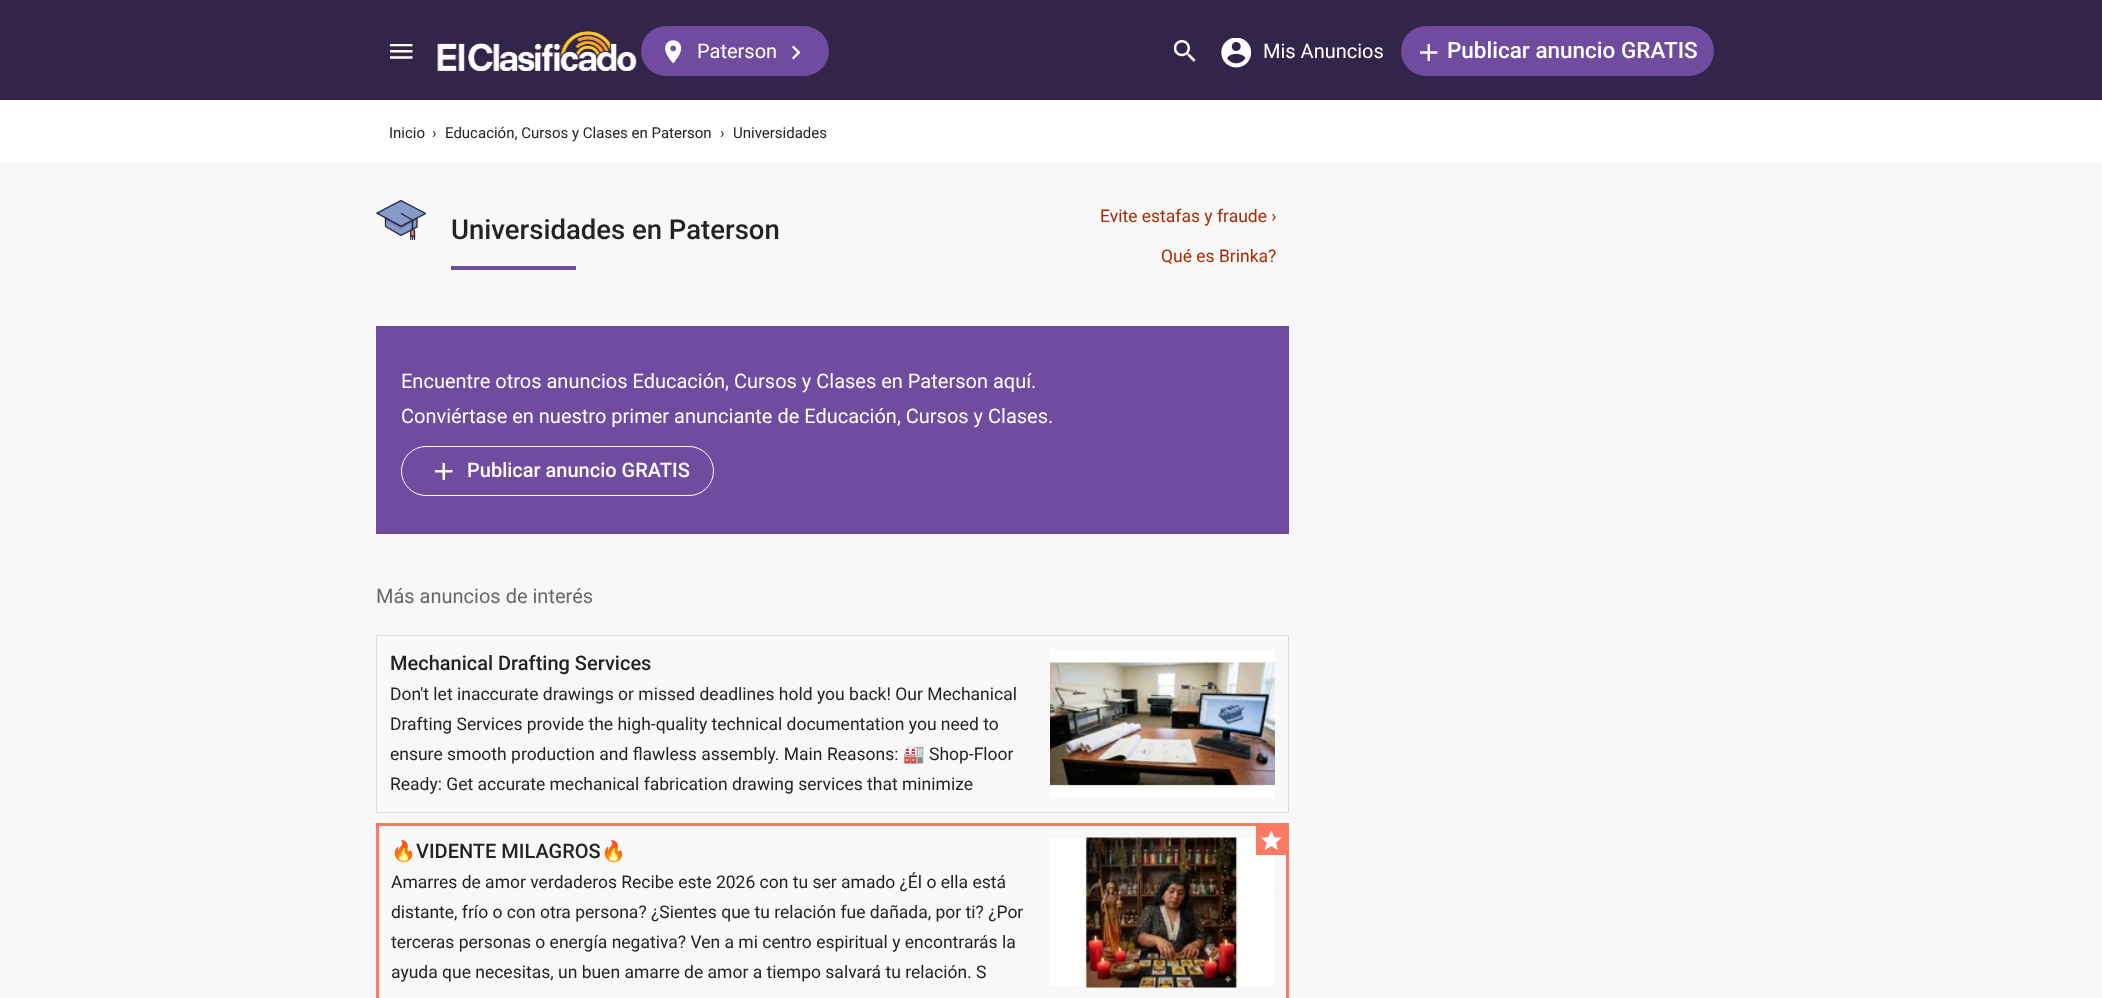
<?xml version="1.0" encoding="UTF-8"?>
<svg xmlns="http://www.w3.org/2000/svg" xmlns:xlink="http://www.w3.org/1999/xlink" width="2102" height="998">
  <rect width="100%" height="100%" fill="#f8f8f8" />
  <rect width="2102" height="100" fill="#322549" />
  <image x="390" y="44" width="23" height="15" xlink:href="image1.png" />
  <image x="437" y="31" width="200" height="40" xlink:href="image2.png" />
  <rect x="641" y="26" width="188" height="50" rx="25" fill="#704ca1" />
  <image x="665" y="40" width="16" height="24" xlink:href="image3.png" />
  <image x="792" y="45" width="8" height="15" xlink:href="image4.png" />
  <image x="1174" y="40" width="22" height="22" xlink:href="image5.png" />
  <image x="1221" y="38" width="30" height="30" xlink:href="image6.png" />
  <rect x="1401" y="26" width="313" height="50" rx="25" fill="#704ca1" />
  <image x="1420" y="44" width="18" height="17" xlink:href="image7.png" />
  <rect y="100" width="2102" height="63" fill="#ffffff" />
  <image x="376" y="200" width="50" height="40" xlink:href="image8.png" />
  <rect x="451" y="266" width="125" height="4" fill="#704ca1" />
  <rect x="376" y="326" width="913" height="208" fill="#704ca1" />
  <rect x="401.5" y="446.5" width="312" height="49" rx="24.5" fill="none" stroke="#ffffff" />
  <image x="435" y="463" width="18" height="17" xlink:href="image9.png" />
  <rect x="376.5" y="635.5" width="912" height="177" fill="none" stroke="#dddddd" />
  <image x="1050" y="649" width="225" height="150" xlink:href="image10.png" />
  <rect x="377.5" y="824.5" width="910" height="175" fill="none" stroke="#fc7a63" stroke-width="3" />
  <rect x="1049" y="855" width="225" height="133" fill="#efefef" />
  <image x="1049" y="837" width="225" height="151" xlink:href="image12.png" />
  <image x="1256" y="826" width="30" height="29" xlink:href="image11.png" />
  <text x="697" y="58" style="font-family: Roboto; font-size: 20px; fill: #ffffff">Paterson</text>
  <text x="1263" y="58" style="font-family: Roboto; font-size: 20px; fill: #ffffff">Mis Anuncios</text>
  <text x="1447" y="58" style="font-family: Roboto; font-size: 22.5px; font-weight: 500; fill: #ffffff">Publicar anuncio GRATIS</text>
  <text x="389" y="138" style="font-family: Roboto; font-size: 15px; fill: #232323">Inicio</text>
  <text x="432" y="138" style="font-family: Roboto; font-size: 15px; fill: #232323">›</text>
  <text x="445" y="138" style="font-family: Roboto; font-size: 15px; fill: #232323">Educación, Cursos y Clases en Paterson</text>
  <text x="720" y="138" style="font-family: Roboto; font-size: 15px; fill: #232323">›</text>
  <text x="733" y="138" style="font-family: Roboto; font-size: 15px; fill: #232323">Universidades</text>
  <text x="451" y="239" style="font-family: Roboto; font-size: 27.5px; font-weight: 500; fill: #232323">Universidades en Paterson</text>
  <text x="1100" y="222" style="font-family: Roboto; font-size: 17.5px; fill: #a82a00">Evite estafas y fraude ›</text>
  <text x="1161" y="262" style="font-family: Roboto; font-size: 17.5px; fill: #a82a00">Qué es Brinka?</text>
  <text x="401" y="388" style="font-family: Roboto; font-size: 20px; fill: #ffffff">Encuentre otros anuncios Educación, Cursos y Clases en Paterson aquí.</text>
  <text x="401" y="423" style="font-family: Roboto; font-size: 20px; fill: #ffffff">Conviértase en nuestro primer anunciante de Educación, Cursos y Clases.</text>
  <text x="467" y="477" style="font-family: Roboto; font-size: 20px; font-weight: 500; fill: #ffffff">Publicar anuncio GRATIS</text>
  <text x="376" y="603" style="font-family: Roboto; font-size: 20px; fill: #676767">Más anuncios de interés</text>
  <text x="390" y="670" style="font-family: Roboto; font-size: 20px; font-weight: 500; fill: #232323">Mechanical Drafting Services</text>
  <text x="390" y="700" style="font-family: Roboto; font-size: 17.5px; fill: #232323">Don't let inaccurate drawings or missed deadlines hold you back! Our Mechanical</text>
  <text x="390" y="730" style="font-family: Roboto; font-size: 17.5px; fill: #232323">Drafting Services provide the high-quality technical documentation you need to</text>
  <text x="390" y="760" style="font-family: Roboto; font-size: 17.5px; fill: #232323">ensure smooth production and flawless assembly. Main Reasons:</text>
  <text x="903" y="760" style="font-family: Noto Color Emoji; font-size: 17.5px; fill: #232323">🏭</text>
  <text x="929" y="760" style="font-family: Roboto; font-size: 17.5px; fill: #232323">Shop-Floor</text>
  <text x="390" y="790" style="font-family: Roboto; font-size: 17.5px; fill: #232323">Ready: Get accurate mechanical fabrication drawing services that minimize</text>
  <text x="391" y="858" style="font-family: Noto Color Emoji; font-size: 20px; fill: #232323">🔥</text>
  <text x="416" y="858" style="font-family: Roboto; font-size: 20px; font-weight: 500; fill: #232323">VIDENTE MILAGROS</text>
  <text x="601" y="858" style="font-family: Noto Color Emoji; font-size: 20px; fill: #232323">🔥</text>
  <text x="391" y="888" style="font-family: Roboto; font-size: 17.5px; fill: #232323">Amarres de amor verdaderos Recibe este 2026 con tu ser amado ¿Él o ella está</text>
  <text x="391" y="918" style="font-family: Roboto; font-size: 17.5px; fill: #232323">distante, frío o con otra persona? ¿Sientes que tu relación fue dañada, por ti? ¿Por</text>
  <text x="391" y="948" style="font-family: Roboto; font-size: 17.5px; fill: #232323">terceras personas o energía negativa? Ven a mi centro espiritual y encontrarás la</text>
  <text x="391" y="978" style="font-family: Roboto; font-size: 17.5px; fill: #232323">ayuda que necesitas, un buen amarre de amor a tiempo salvará tu relación. S</text>
</svg>
